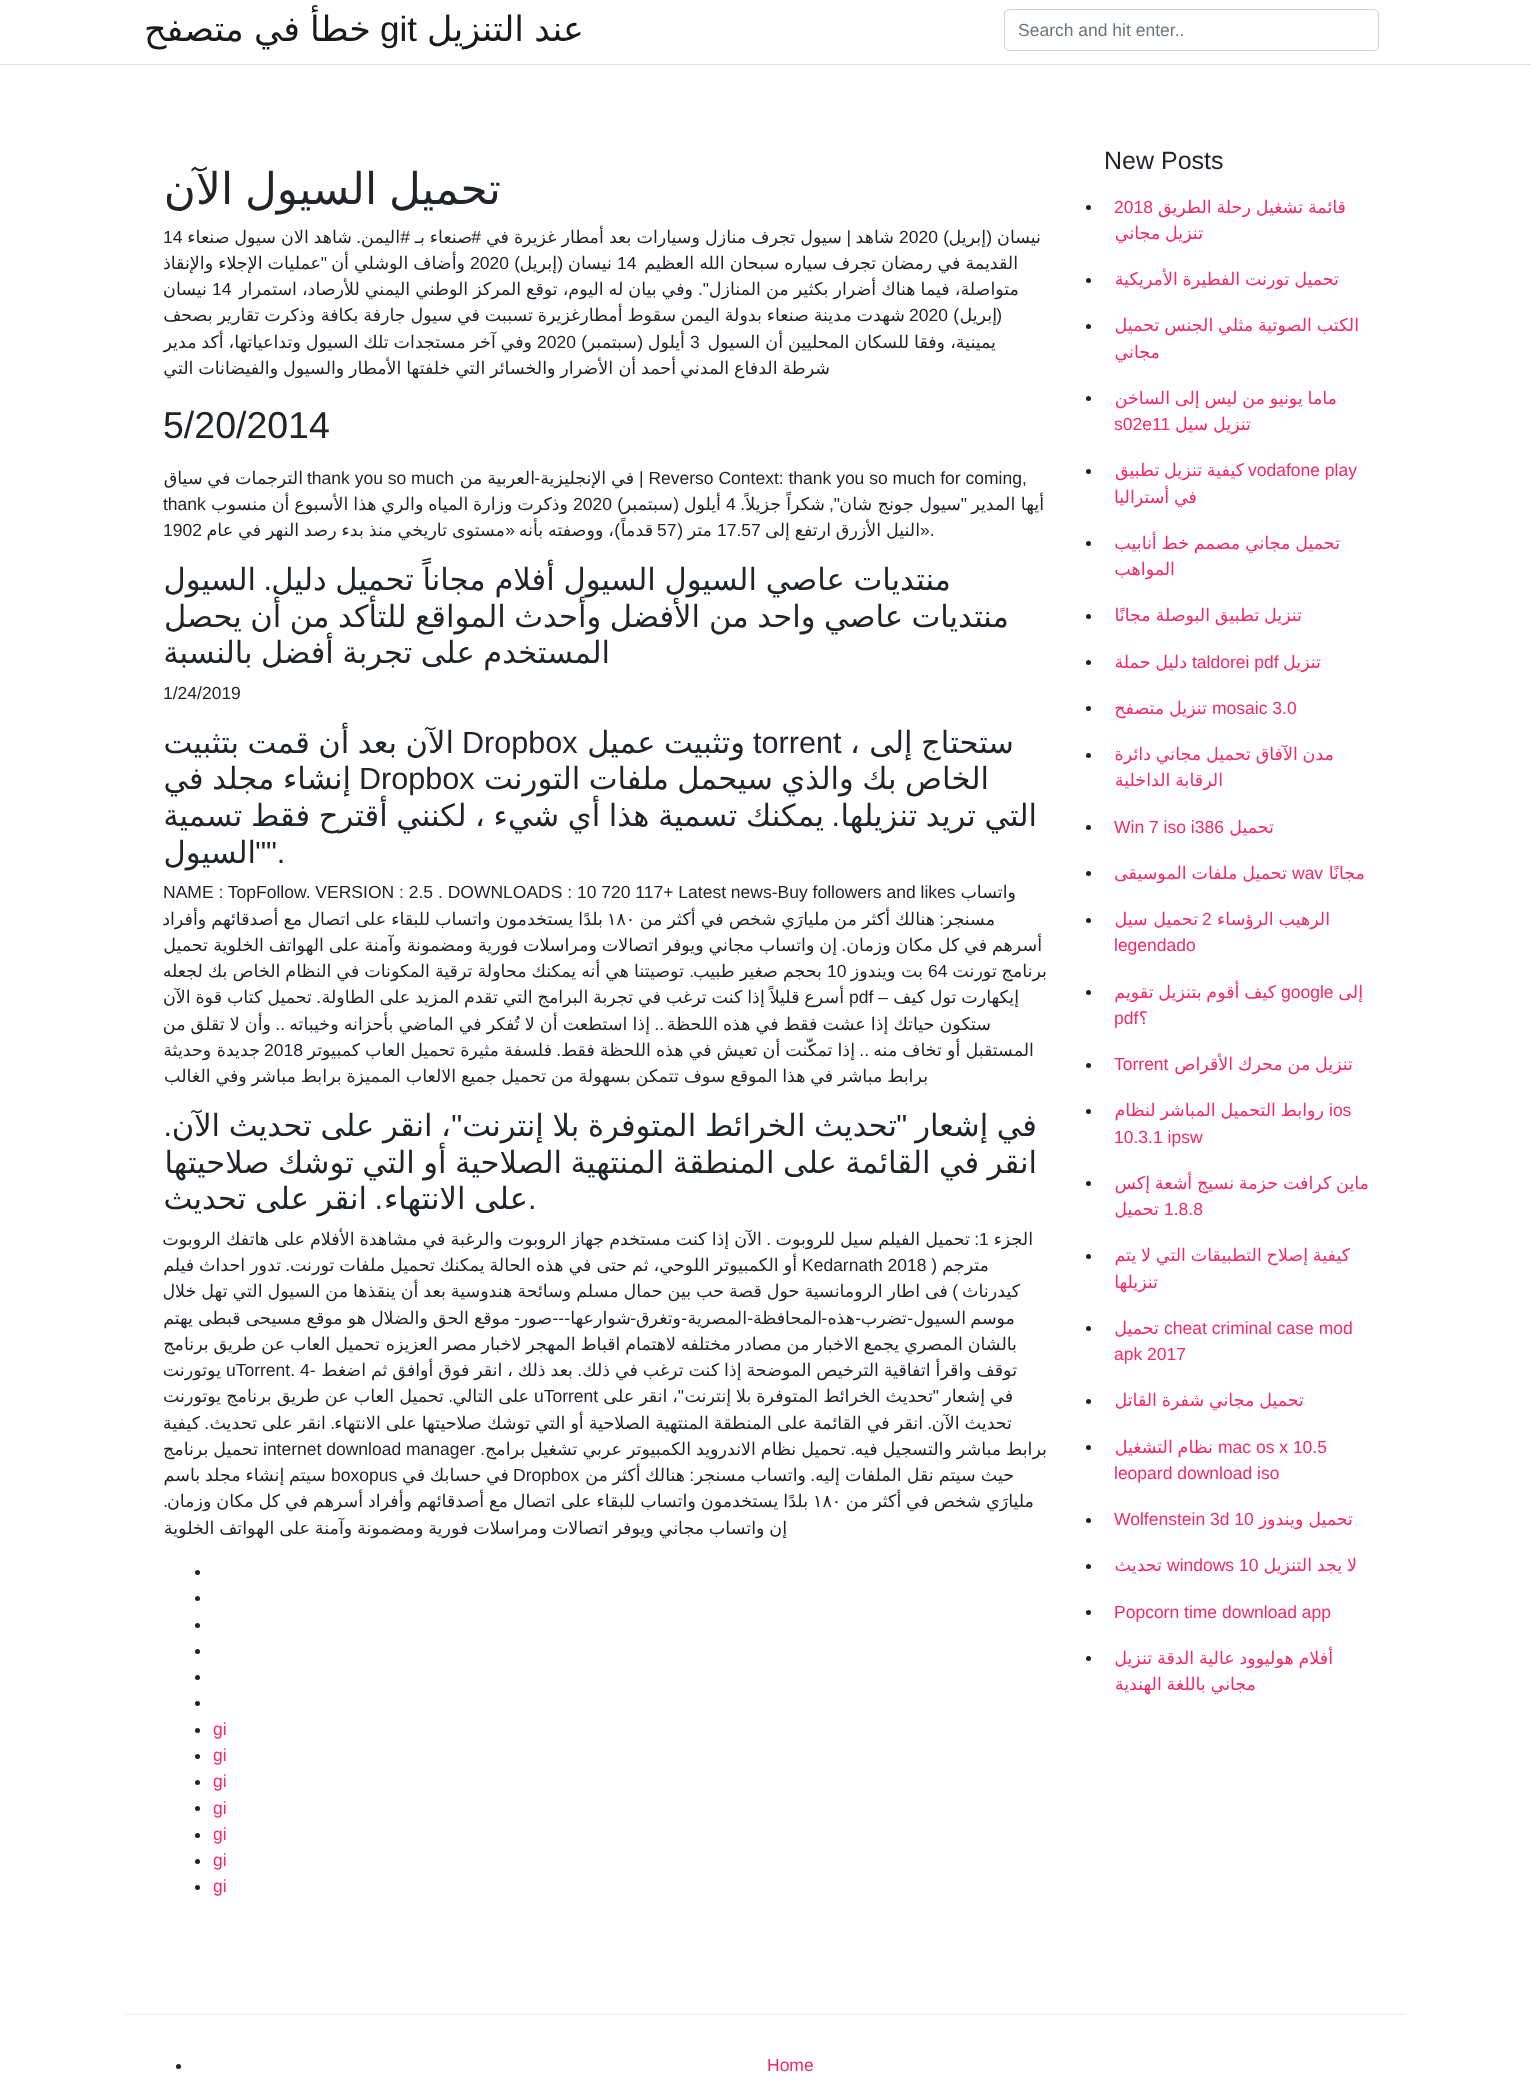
<?xml version="1.0" encoding="UTF-8"?>
<svg xmlns="http://www.w3.org/2000/svg" xmlns:xlink="http://www.w3.org/1999/xlink" width="1531" height="2084">
  <rect width="100%" height="100%" fill="#ffffff" />
  <rect y="64" width="1531" height="1" fill="#e1e2e3" />
  <rect x="1004.5" y="9.5" width="374" height="41" rx="4.5" fill="none" stroke="#ced4da" />
  <circle cx="1088.5" cy="207.5" r="2.5" fill="#212529" />
  <circle cx="1088.5" cy="280.5" r="2.5" fill="#212529" />
  <circle cx="1088.5" cy="326.5" r="2.5" fill="#212529" />
  <circle cx="1088.5" cy="398.5" r="2.5" fill="#212529" />
  <circle cx="1088.5" cy="471.5" r="2.5" fill="#212529" />
  <circle cx="1088.5" cy="543.5" r="2.5" fill="#212529" />
  <circle cx="1088.5" cy="616.5" r="2.5" fill="#212529" />
  <circle cx="1088.5" cy="662.5" r="2.5" fill="#212529" />
  <circle cx="1088.5" cy="708.5" r="2.5" fill="#212529" />
  <circle cx="1088.5" cy="755.5" r="2.5" fill="#212529" />
  <circle cx="1088.5" cy="827.5" r="2.5" fill="#212529" />
  <circle cx="1088.5" cy="873.5" r="2.5" fill="#212529" />
  <circle cx="1088.5" cy="920.5" r="2.5" fill="#212529" />
  <circle cx="1088.5" cy="992.5" r="2.5" fill="#212529" />
  <circle cx="1088.5" cy="1065.5" r="2.5" fill="#212529" />
  <circle cx="1088.5" cy="1111.5" r="2.5" fill="#212529" />
  <circle cx="1088.5" cy="1183.5" r="2.5" fill="#212529" />
  <circle cx="1088.5" cy="1256.5" r="2.5" fill="#212529" />
  <circle cx="1088.5" cy="1328.5" r="2.5" fill="#212529" />
  <circle cx="1088.5" cy="1401.5" r="2.5" fill="#212529" />
  <circle cx="1088.5" cy="1447.5" r="2.5" fill="#212529" />
  <circle cx="1088.5" cy="1520.5" r="2.5" fill="#212529" />
  <circle cx="1088.5" cy="1566.5" r="2.5" fill="#212529" />
  <circle cx="1088.5" cy="1612.5" r="2.5" fill="#212529" />
  <circle cx="1088.5" cy="1658.5" r="2.5" fill="#212529" />
  <circle cx="197.5" cy="1572.5" r="2.5" fill="#212529" />
  <circle cx="197.5" cy="1598.5" r="2.5" fill="#212529" />
  <circle cx="197.5" cy="1625.5" r="2.5" fill="#212529" />
  <circle cx="197.5" cy="1651.5" r="2.5" fill="#212529" />
  <circle cx="197.5" cy="1677.5" r="2.5" fill="#212529" />
  <circle cx="197.5" cy="1703.5" r="2.5" fill="#212529" />
  <circle cx="197.5" cy="1730.5" r="2.5" fill="#212529" />
  <circle cx="197.5" cy="1756.5" r="2.5" fill="#212529" />
  <circle cx="197.5" cy="1782.5" r="2.5" fill="#212529" />
  <circle cx="197.5" cy="1808.5" r="2.5" fill="#212529" />
  <circle cx="197.5" cy="1835.5" r="2.5" fill="#212529" />
  <circle cx="197.5" cy="1861.5" r="2.5" fill="#212529" />
  <circle cx="197.5" cy="1887.5" r="2.5" fill="#212529" />
  <rect x="126" y="2014" width="1280" height="1" fill="#eeeeee" />
  <circle cx="178.5" cy="2066.5" r="2.5" fill="#212529" />
  <text x="1018" y="36" style="font-family: Liberation Sans; font-size: 17.5px; fill: #6c757d">Search and hit enter..</text>
  <text x="584" y="41" word-spacing="-1" style="font-family: DejaVu Sans; font-size: 35px; direction: rtl; fill: #1a1a1a">عند التنزيل</text>
  <text x="380" y="41" style="font-family: Liberation Sans; font-size: 35px; fill: #1a1a1a">git</text>
  <text x="371" y="41" word-spacing="-1" style="font-family: DejaVu Sans; font-size: 35px; direction: rtl; fill: #1a1a1a">خطأ في متصفح</text>
  <text x="1104" y="169" style="font-family: Liberation Sans; font-size: 25px; fill: #212529">New Posts</text>
  <text x="1346" y="213" word-spacing="-0.75" style="font-family: DejaVu Sans; font-size: 17.5px; direction: rtl; fill: #f42966">قائمة تشغيل رحلة الطريق</text>
  <text x="1114" y="213" style="font-family: Liberation Sans; font-size: 17.5px; fill: #f42966">2018</text>
  <text x="1203" y="239" word-spacing="-0.75" style="font-family: DejaVu Sans; font-size: 17.5px; direction: rtl; fill: #f42966">تنزيل مجاني</text>
  <text x="1339" y="285" word-spacing="-0.75" style="font-family: DejaVu Sans; font-size: 17.5px; direction: rtl; fill: #f42966">تحميل تورنت الفطيرة الأمريكية</text>
  <text x="1359" y="331" word-spacing="-0.75" style="font-family: DejaVu Sans; font-size: 17.5px; direction: rtl; fill: #f42966">الكتب الصوتية مثلي الجنس تحميل</text>
  <text x="1160" y="358" style="font-family: DejaVu Sans; font-size: 17.5px; direction: rtl; fill: #f42966">مجاني</text>
  <text x="1337" y="404" word-spacing="-0.75" style="font-family: DejaVu Sans; font-size: 17.5px; direction: rtl; fill: #f42966">ماما يونيو من ليس إلى الساخن</text>
  <text x="1251" y="430" word-spacing="-0.75" style="font-family: DejaVu Sans; font-size: 17.5px; direction: rtl; fill: #f42966">تنزيل سيل</text>
  <text x="1114" y="430" style="font-family: Liberation Sans; font-size: 17.5px; fill: #f42966">s02e11</text>
  <text x="1248" y="476" style="font-family: Liberation Sans; font-size: 17.5px; fill: #f42966">vodafone play</text>
  <text x="1244" y="476" word-spacing="-0.75" style="font-family: DejaVu Sans; font-size: 17.5px; direction: rtl; fill: #f42966">كيفية تنزيل تطبيق</text>
  <text x="1197" y="503" word-spacing="-0.75" style="font-family: DejaVu Sans; font-size: 17.5px; direction: rtl; fill: #f42966">في أستراليا</text>
  <text x="1340" y="549" word-spacing="-0.75" style="font-family: DejaVu Sans; font-size: 17.5px; direction: rtl; fill: #f42966">تحميل مجاني مصمم خط أنابيب</text>
  <text x="1175" y="575" style="font-family: DejaVu Sans; font-size: 17.5px; direction: rtl; fill: #f42966">المواهب</text>
  <text x="1302" y="621" word-spacing="-0.75" style="font-family: DejaVu Sans; font-size: 17.5px; direction: rtl; fill: #f42966">تنزيل تطبيق البوصلة مجانًا</text>
  <text x="1321" y="668" style="font-family: DejaVu Sans; font-size: 17.5px; direction: rtl; fill: #f42966">تنزيل</text>
  <text x="1192" y="668" style="font-family: Liberation Sans; font-size: 17.5px; fill: #f42966">taldorei pdf</text>
  <text x="1187" y="668" word-spacing="-0.75" style="font-family: DejaVu Sans; font-size: 17.5px; direction: rtl; fill: #f42966">دليل حملة</text>
  <text x="1212" y="714" style="font-family: Liberation Sans; font-size: 17.5px; fill: #f42966">mosaic 3.0</text>
  <text x="1207" y="714" word-spacing="-0.75" style="font-family: DejaVu Sans; font-size: 17.5px; direction: rtl; fill: #f42966">تنزيل متصفح</text>
  <text x="1334" y="760" word-spacing="-0.75" style="font-family: DejaVu Sans; font-size: 17.5px; direction: rtl; fill: #f42966">مدن الآفاق تحميل مجاني دائرة</text>
  <text x="1223" y="786" word-spacing="-0.75" style="font-family: DejaVu Sans; font-size: 17.5px; direction: rtl; fill: #f42966">الرقابة الداخلية</text>
  <text x="1274" y="833" style="font-family: DejaVu Sans; font-size: 17.5px; direction: rtl; fill: #f42966">تحميل</text>
  <text x="1114" y="833" style="font-family: Liberation Sans; font-size: 17.5px; fill: #f42966">Win 7 iso i386</text>
  <text x="1365" y="879" style="font-family: DejaVu Sans; font-size: 17.5px; direction: rtl; fill: #f42966">مجانًا</text>
  <text x="1292" y="879" style="font-family: Liberation Sans; font-size: 17.5px; fill: #f42966">wav</text>
  <text x="1287" y="879" word-spacing="-0.75" style="font-family: DejaVu Sans; font-size: 17.5px; direction: rtl; fill: #f42966">تحميل ملفات الموسيقى</text>
  <text x="1330" y="925" word-spacing="-0.75" style="font-family: DejaVu Sans; font-size: 17.5px; direction: rtl; fill: #f42966">الرهيب الرؤساء</text>
  <text x="1202" y="925" style="font-family: Liberation Sans; font-size: 17.5px; fill: #f42966">2</text>
  <text x="1198" y="925" style="font-family: DejaVu Sans; font-size: 17.5px; direction: rtl; fill: #f42966">تحميل سيل</text>
  <text x="1114" y="951" style="font-family: Liberation Sans; font-size: 17.5px; fill: #f42966">legendado</text>
  <text x="1363" y="998" style="font-family: DejaVu Sans; font-size: 17.5px; direction: rtl; fill: #f42966">إلى</text>
  <text x="1281" y="998" style="font-family: Liberation Sans; font-size: 17.5px; fill: #f42966">google</text>
  <text x="1276" y="998" word-spacing="-0.75" style="font-family: DejaVu Sans; font-size: 17.5px; direction: rtl; fill: #f42966">كيف أقوم بتنزيل تقويم</text>
  <text x="1148" y="1024" style="font-family: DejaVu Sans; font-size: 17.5px; direction: rtl; fill: #f42966">؟</text>
  <text x="1114" y="1024" style="font-family: Liberation Sans; font-size: 17.5px; fill: #f42966">pdf</text>
  <text x="1353" y="1070" word-spacing="-0.75" style="font-family: DejaVu Sans; font-size: 17.5px; direction: rtl; fill: #f42966">تنزيل من محرك الأقراص</text>
  <text x="1114" y="1070" style="font-family: Liberation Sans; font-size: 17.5px; fill: #f42966">Torrent</text>
  <text x="1329" y="1116" style="font-family: Liberation Sans; font-size: 17.5px; fill: #f42966">ios</text>
  <text x="1324" y="1116" word-spacing="-0.75" style="font-family: DejaVu Sans; font-size: 17.5px; direction: rtl; fill: #f42966">روابط التحميل المباشر لنظام</text>
  <text x="1114" y="1143" style="font-family: Liberation Sans; font-size: 17.5px; fill: #f42966">10.3.1 ipsw</text>
  <text x="1369" y="1189" word-spacing="-0.75" style="font-family: DejaVu Sans; font-size: 17.5px; direction: rtl; fill: #f42966">ماين كرافت حزمة نسيج أشعة إكس</text>
  <text x="1164" y="1215" style="font-family: Liberation Sans; font-size: 17.5px; fill: #f42966">1.8.8</text>
  <text x="1159" y="1215" style="font-family: DejaVu Sans; font-size: 17.5px; direction: rtl; fill: #f42966">تحميل</text>
  <text x="1350" y="1261" word-spacing="-0.75" style="font-family: DejaVu Sans; font-size: 17.5px; direction: rtl; fill: #f42966">كيفية إصلاح التطبيقات التي لا يتم</text>
  <text x="1158" y="1288" style="font-family: DejaVu Sans; font-size: 17.5px; direction: rtl; fill: #f42966">تنزيلها</text>
  <text x="1164" y="1334" style="font-family: Liberation Sans; font-size: 17.5px; fill: #f42966">cheat criminal case mod</text>
  <text x="1159" y="1334" style="font-family: DejaVu Sans; font-size: 17.5px; direction: rtl; fill: #f42966">تحميل</text>
  <text x="1114" y="1360" style="font-family: Liberation Sans; font-size: 17.5px; fill: #f42966">apk 2017</text>
  <text x="1304" y="1406" word-spacing="-0.75" style="font-family: DejaVu Sans; font-size: 17.5px; direction: rtl; fill: #f42966">تحميل مجاني شفرة القاتل</text>
  <text x="1218" y="1453" style="font-family: Liberation Sans; font-size: 17.5px; fill: #f42966">mac os x 10.5</text>
  <text x="1213" y="1453" word-spacing="-0.75" style="font-family: DejaVu Sans; font-size: 17.5px; direction: rtl; fill: #f42966">نظام التشغيل</text>
  <text x="1114" y="1479" style="font-family: Liberation Sans; font-size: 17.5px; fill: #f42966">leopard download iso</text>
  <text x="1353" y="1525" word-spacing="-0.75" style="font-family: DejaVu Sans; font-size: 17.5px; direction: rtl; fill: #f42966">تحميل ويندوز</text>
  <text x="1114" y="1525" style="font-family: Liberation Sans; font-size: 17.5px; fill: #f42966">Wolfenstein 3d 10</text>
  <text x="1357" y="1571" word-spacing="-0.75" style="font-family: DejaVu Sans; font-size: 17.5px; direction: rtl; fill: #f42966">لا يجد التنزيل</text>
  <text x="1167" y="1571" style="font-family: Liberation Sans; font-size: 17.5px; fill: #f42966">windows 10</text>
  <text x="1162" y="1571" style="font-family: DejaVu Sans; font-size: 17.5px; direction: rtl; fill: #f42966">تحديث</text>
  <text x="1114" y="1618" style="font-family: Liberation Sans; font-size: 17.5px; fill: #f42966">Popcorn time download app</text>
  <text x="1333" y="1664" word-spacing="-0.75" style="font-family: DejaVu Sans; font-size: 17.5px; direction: rtl; fill: #f42966">أفلام هوليوود عالية الدقة تنزيل</text>
  <text x="1256" y="1690" word-spacing="-0.75" style="font-family: DejaVu Sans; font-size: 17.5px; direction: rtl; fill: #f42966">مجاني باللغة الهندية</text>
  <text x="501" y="204" word-spacing="-2" style="font-family: DejaVu Sans; font-size: 43.75px; direction: rtl; fill: #212529">تحميل السيول الآن</text>
  <text x="1041" y="243" style="font-family: DejaVu Sans; font-size: 17.5px; direction: rtl; fill: #212529">نيسان</text>
  <text x="992" y="243" style="font-family: Liberation Sans; font-size: 17.5px; direction: rtl; fill: #212529">(</text>
  <text x="986" y="243" style="font-family: DejaVu Sans; font-size: 17.5px; direction: rtl; fill: #212529">إبريل</text>
  <text x="949" y="243" style="font-family: Liberation Sans; font-size: 17.5px; direction: rtl; fill: #212529">)</text>
  <text x="899" y="243" style="font-family: Liberation Sans; font-size: 17.5px; fill: #212529">2020</text>
  <text x="894" y="243" style="font-family: DejaVu Sans; font-size: 17.5px; direction: rtl; fill: #212529">شاهد</text>
  <text x="851" y="243" style="font-family: Liberation Sans; font-size: 17.5px; direction: rtl; fill: #212529">|</text>
  <text x="842" y="243" word-spacing="-0.5" style="font-family: DejaVu Sans; font-size: 17.5px; direction: rtl; fill: #212529">سيول تجرف منازل وسيارات بعد أمطار غزيرة في</text>
  <text x="481" y="243" style="font-family: Liberation Sans; font-size: 17.5px; direction: rtl; fill: #212529">#</text>
  <text x="472" y="243" word-spacing="-0.5" style="font-family: DejaVu Sans; font-size: 17.5px; direction: rtl; fill: #212529">صنعاء بـ</text>
  <text x="410" y="243" style="font-family: Liberation Sans; font-size: 17.5px; direction: rtl; fill: #212529">#</text>
  <text x="400" y="243" style="font-family: DejaVu Sans; font-size: 17.5px; direction: rtl; fill: #212529">اليمن</text>
  <text x="361" y="243" style="font-family: Liberation Sans; font-size: 17.5px; direction: rtl; fill: #212529">.</text>
  <text x="352" y="243" word-spacing="-0.75" style="font-family: DejaVu Sans; font-size: 17.5px; direction: rtl; fill: #212529">شاهد الان</text>
  <text x="276" y="243" word-spacing="-0.75" style="font-family: DejaVu Sans; font-size: 17.5px; direction: rtl; fill: #212529">سيول صنعاء</text>
  <text x="163" y="243" style="font-family: Liberation Sans; font-size: 17.5px; fill: #212529">14</text>
  <text x="1018" y="269" word-spacing="-0.5" style="font-family: DejaVu Sans; font-size: 17.5px; direction: rtl; fill: #212529">القديمة في رمضان تجرف سياره سبحان الله العظيم</text>
  <text x="617" y="269" style="font-family: Liberation Sans; font-size: 17.5px; fill: #212529">14</text>
  <text x="612" y="269" style="font-family: DejaVu Sans; font-size: 17.5px; direction: rtl; fill: #212529">نيسان</text>
  <text x="563" y="269" style="font-family: Liberation Sans; font-size: 17.5px; direction: rtl; fill: #212529">(</text>
  <text x="557" y="269" style="font-family: DejaVu Sans; font-size: 17.5px; direction: rtl; fill: #212529">إبريل</text>
  <text x="520" y="269" style="font-family: Liberation Sans; font-size: 17.5px; direction: rtl; fill: #212529">)</text>
  <text x="470" y="269" style="font-family: Liberation Sans; font-size: 17.5px; fill: #212529">2020</text>
  <text x="465" y="269" word-spacing="-0.5" style="font-family: DejaVu Sans; font-size: 17.5px; direction: rtl; fill: #212529">وأضاف الوشلي أن</text>
  <text x="327" y="269" style="font-family: Liberation Sans; font-size: 17.5px; direction: rtl; fill: #212529">"</text>
  <text x="321" y="269" word-spacing="-0.5" style="font-family: DejaVu Sans; font-size: 17.5px; direction: rtl; fill: #212529">عمليات الإجلاء والإنقاذ</text>
  <text x="1019" y="295" word-spacing="-0.5" style="font-family: DejaVu Sans; font-size: 17.5px; direction: rtl; fill: #212529">متواصلة، فيما هناك أضرار بكثير من المنازل</text>
  <text x="709" y="295" style="font-family: Liberation Sans; font-size: 17.5px; direction: rtl; fill: #212529">".</text>
  <text x="693" y="295" word-spacing="-0.6" style="font-family: DejaVu Sans; font-size: 17.5px; direction: rtl; fill: #212529">وفي بيان له اليوم، توقع المركز الوطني اليمني للأرصاد، استمرار</text>
  <text x="212" y="295" style="font-family: Liberation Sans; font-size: 17.5px; fill: #212529">14</text>
  <text x="207" y="295" style="font-family: DejaVu Sans; font-size: 17.5px; direction: rtl; fill: #212529">نيسان</text>
  <text x="1002" y="321" style="font-family: Liberation Sans; font-size: 17.5px; direction: rtl; fill: #212529">(</text>
  <text x="997" y="321" style="font-family: DejaVu Sans; font-size: 17.5px; direction: rtl; fill: #212529">إبريل</text>
  <text x="959" y="321" style="font-family: Liberation Sans; font-size: 17.5px; direction: rtl; fill: #212529">)</text>
  <text x="909" y="321" style="font-family: Liberation Sans; font-size: 17.5px; fill: #212529">2020</text>
  <text x="905" y="321" word-spacing="-0.75" style="font-family: DejaVu Sans; font-size: 17.5px; direction: rtl; fill: #212529">شهدت مدينة صنعاء بدولة اليمن سقوط أمطارغزيرة تسببت في سيول جارفة بكافة</text>
  <text x="315" y="321" word-spacing="-0.75" style="font-family: DejaVu Sans; font-size: 17.5px; direction: rtl; fill: #212529">وذكرت تقارير بصحف</text>
  <text x="996" y="348" word-spacing="-0.5" style="font-family: DejaVu Sans; font-size: 17.5px; direction: rtl; fill: #212529">يمينية، وفقا للسكان المحليين أن السيول</text>
  <text x="690" y="348" style="font-family: Liberation Sans; font-size: 17.5px; fill: #212529">3</text>
  <text x="685" y="348" style="font-family: DejaVu Sans; font-size: 17.5px; direction: rtl; fill: #212529">أيلول</text>
  <text x="643" y="348" style="font-family: Liberation Sans; font-size: 17.5px; direction: rtl; fill: #212529">(</text>
  <text x="587" y="348" style="font-family: Liberation Sans; font-size: 17.5px; direction: rtl; fill: #212529">)</text>
  <text x="637" y="348" style="font-family: DejaVu Sans; font-size: 17.5px; direction: rtl; fill: #212529">سبتمبر</text>
  <text x="537" y="348" style="font-family: Liberation Sans; font-size: 17.5px; fill: #212529">2020</text>
  <text x="532" y="348" word-spacing="-0.75" style="font-family: DejaVu Sans; font-size: 17.5px; direction: rtl; fill: #212529">وفي آخر مستجدات تلك السيول وتداعياتها، أكد مدير</text>
  <text x="830" y="374" word-spacing="-0.75" style="font-family: DejaVu Sans; font-size: 17.5px; direction: rtl; fill: #212529">شرطة الدفاع المدني</text>
  <text x="676" y="374" word-spacing="-0.75" style="font-family: DejaVu Sans; font-size: 17.5px; direction: rtl; fill: #212529">أحمد أن</text>
  <text x="613" y="374" word-spacing="-0.75" style="font-family: DejaVu Sans; font-size: 17.5px; direction: rtl; fill: #212529">الأضرار والخسائر التي خلفتها الأمطار والسيول والفيضانات التي</text>
  <text x="163" y="438" style="font-family: Liberation Sans; font-size: 37.5px; fill: #212529">5/20/2014</text>
  <text x="639" y="484" style="font-family: Liberation Sans; font-size: 17.5px; fill: #212529">| Reverso Context: thank you so much for coming,</text>
  <text x="634" y="484" word-spacing="-0.75" style="font-family: DejaVu Sans; font-size: 17.5px; direction: rtl; fill: #212529">في الإنجليزية</text>
  <text x="540" y="484" style="font-family: Liberation Sans; font-size: 17.5px; direction: rtl; fill: #212529">-</text>
  <text x="535" y="484" word-spacing="-0.75" style="font-family: DejaVu Sans; font-size: 17.5px; direction: rtl; fill: #212529">العربية من</text>
  <text x="307" y="484" style="font-family: Liberation Sans; font-size: 17.5px; fill: #212529">thank you so much</text>
  <text x="303" y="484" word-spacing="-0.75" style="font-family: DejaVu Sans; font-size: 17.5px; direction: rtl; fill: #212529">الترجمات في سياق</text>
  <text x="1044" y="510" style="font-family: DejaVu Sans; font-size: 17.5px; direction: rtl; fill: #212529">أيها المدير</text>
  <text x="967" y="510" style="font-family: Liberation Sans; font-size: 17.5px; direction: rtl; fill: #212529">"</text>
  <text x="961" y="510" style="font-family: DejaVu Sans; font-size: 17.5px; direction: rtl; fill: #212529">سيول جونج شان</text>
  <text x="840" y="510" style="font-family: Liberation Sans; font-size: 17.5px; direction: rtl; fill: #212529">",</text>
  <text x="825" y="510" style="font-family: DejaVu Sans; font-size: 17.5px; direction: rtl; fill: #212529">شكراً</text>
  <text x="726" y="510" style="font-family: Liberation Sans; font-size: 17.5px; fill: #212529">4</text>
  <text x="721" y="510" style="font-family: DejaVu Sans; font-size: 17.5px; direction: rtl; fill: #212529">أيلول</text>
  <text x="679" y="510" style="font-family: Liberation Sans; font-size: 17.5px; direction: rtl; fill: #212529">(</text>
  <text x="623" y="510" style="font-family: Liberation Sans; font-size: 17.5px; direction: rtl; fill: #212529">)</text>
  <text x="573" y="510" style="font-family: Liberation Sans; font-size: 17.5px; fill: #212529">2020</text>
  <text x="568" y="510" word-spacing="-0.75" style="font-family: DejaVu Sans; font-size: 17.5px; direction: rtl; fill: #212529">وذكرت وزارة المياه والري هذا الأسبوع أن منسوب</text>
  <text x="163" y="510" style="font-family: Liberation Sans; font-size: 17.5px; fill: #212529">thank</text>
  <text x="745" y="510" style="font-family: Liberation Sans; font-size: 17.5px; direction: rtl; fill: #212529">.</text>
  <text x="781" y="510" style="font-family: DejaVu Sans; font-size: 17.5px; direction: rtl; fill: #212529">جزيلاً</text>
  <text x="673" y="510" style="font-family: DejaVu Sans; font-size: 17.5px; direction: rtl; fill: #212529">سبتمبر</text>
  <text x="920" y="536" style="font-family: Liberation Sans; font-size: 17.5px; fill: #212529">».</text>
  <text x="920" y="536" word-spacing="-0.75" style="font-family: DejaVu Sans; font-size: 17.5px; direction: rtl; fill: #212529">النيل الأزرق ارتفع إلى</text>
  <text x="717" y="536" style="font-family: Liberation Sans; font-size: 17.5px; fill: #212529">17.57</text>
  <text x="712" y="536" style="font-family: DejaVu Sans; font-size: 17.5px; direction: rtl; fill: #212529">متر</text>
  <text x="683" y="536" style="font-family: Liberation Sans; font-size: 17.5px; direction: rtl; fill: #212529">(</text>
  <text x="657" y="536" style="font-family: Liberation Sans; font-size: 17.5px; fill: #212529">57</text>
  <text x="653" y="536" style="font-family: DejaVu Sans; font-size: 17.5px; direction: rtl; fill: #212529">قدماً</text>
  <text x="620" y="536" style="font-family: Liberation Sans; font-size: 17.5px; direction: rtl; fill: #212529">)</text>
  <text x="614" y="536" word-spacing="-0.6" style="font-family: DejaVu Sans; font-size: 17.5px; direction: rtl; fill: #212529">، ووصفته بأنه</text>
  <text x="515" y="536" style="font-family: Liberation Sans; font-size: 17.5px; direction: rtl; fill: #212529">«</text>
  <text x="505" y="536" word-spacing="-0.6" style="font-family: DejaVu Sans; font-size: 17.5px; direction: rtl; fill: #212529">مستوى تاريخي منذ بدء رصد النهر في عام</text>
  <text x="163" y="536" style="font-family: Liberation Sans; font-size: 17.5px; fill: #212529">1902</text>
  <text x="951" y="590" word-spacing="-1" style="font-family: DejaVu Sans; font-size: 30.6px; direction: rtl; fill: #212529">منتديات عاصي السيول السيول أفلام مجاناً تحميل دليل</text>
  <text x="272" y="590" style="font-family: Liberation Sans; font-size: 30.6px; direction: rtl; fill: #212529">.</text>
  <text x="256" y="590" style="font-family: DejaVu Sans; font-size: 30.6px; direction: rtl; fill: #212529">السيول</text>
  <text x="1009" y="627" word-spacing="-1.25" style="font-family: DejaVu Sans; font-size: 30.6px; direction: rtl; fill: #212529">منتديات عاصي واحد من</text>
  <text x="700" y="627" word-spacing="-1.25" style="font-family: DejaVu Sans; font-size: 30.6px; direction: rtl; fill: #212529">الأفضل وأحدث المواقع للتأكد من أن يحصل</text>
  <text x="610" y="663" word-spacing="-1.25" style="font-family: DejaVu Sans; font-size: 30.6px; direction: rtl; fill: #212529">المستخدم على تجربة أفضل بالنسبة</text>
  <text x="163" y="699" style="font-family: Liberation Sans; font-size: 17.5px; fill: #212529">1/24/2019</text>
  <text x="1014" y="753" word-spacing="-1.25" style="font-family: DejaVu Sans; font-size: 30.6px; direction: rtl; fill: #212529">ستحتاج إلى</text>
  <text x="850" y="753" style="font-family: DejaVu Sans; font-size: 30.6px; fill: #212529">،</text>
  <text x="753" y="753" style="font-family: Liberation Sans; font-size: 30.6px; fill: #212529">torrent</text>
  <text x="745" y="753" word-spacing="-1.25" style="font-family: DejaVu Sans; font-size: 30.6px; direction: rtl; fill: #212529">وتثبيت عميل</text>
  <text x="462" y="753" style="font-family: Liberation Sans; font-size: 30.6px; fill: #212529">Dropbox</text>
  <text x="454" y="753" word-spacing="-1.25" style="font-family: DejaVu Sans; font-size: 30.6px; direction: rtl; fill: #212529">الآن بعد أن قمت بتثبيت</text>
  <text x="989" y="789" word-spacing="-1.25" style="font-family: DejaVu Sans; font-size: 30.6px; direction: rtl; fill: #212529">الخاص بك والذي سيحمل ملفات التورنت</text>
  <text x="359" y="789" style="font-family: Liberation Sans; font-size: 30.6px; fill: #212529">Dropbox</text>
  <text x="351" y="789" word-spacing="-1.25" style="font-family: DejaVu Sans; font-size: 30.6px; direction: rtl; fill: #212529">إنشاء مجلد في</text>
  <text x="1037" y="826" word-spacing="-1.1" style="font-family: DejaVu Sans; font-size: 30.6px; direction: rtl; fill: #212529">التي تريد تنزيلها</text>
  <text x="840" y="826" style="font-family: Liberation Sans; font-size: 30.6px; direction: rtl; fill: #212529">.</text>
  <text x="824" y="826" word-spacing="-1.1" style="font-family: DejaVu Sans; font-size: 30.6px; direction: rtl; fill: #212529">يمكنك تسمية هذا أي شيء ، لكنني أقترح فقط تسمية</text>
  <text x="266" y="863" style="font-family: Liberation Sans; font-size: 30.6px; fill: #212529">".</text>
  <text x="266" y="863" style="font-family: Liberation Sans; font-size: 30.6px; direction: rtl; fill: #212529">"</text>
  <text x="256" y="863" style="font-family: DejaVu Sans; font-size: 30.6px; direction: rtl; fill: #212529">السيول</text>
  <text x="1016" y="898" style="font-family: DejaVu Sans; font-size: 17.5px; direction: rtl; fill: #212529">واتساب</text>
  <text x="163" y="898" style="font-family: Liberation Sans; font-size: 17.5px; fill: #212529">NAME : TopFollow. VERSION : 2.5 . DOWNLOADS : 10 720 117+ Latest news-Buy followers and likes</text>
  <text x="995" y="925" style="font-family: DejaVu Sans; font-size: 17.5px; direction: rtl; fill: #212529">مسنجر</text>
  <text x="944" y="925" style="font-family: Liberation Sans; font-size: 17.5px; direction: rtl; fill: #212529">:</text>
  <text x="935" y="925" word-spacing="-0.5" style="font-family: DejaVu Sans; font-size: 17.5px; direction: rtl; fill: #212529">هنالك أكثر من مليارَي شخص في أكثر من</text>
  <text x="607" y="925" style="font-family: DejaVu Sans; font-size: 17.5px; fill: #212529">١٨٠</text>
  <text x="603" y="925" word-spacing="-0.5" style="font-family: DejaVu Sans; font-size: 17.5px; direction: rtl; fill: #212529">بلدًا يستخدمون واتساب للبقاء على اتصال مع أصدقائهم وأفراد</text>
  <text x="1042" y="951" word-spacing="-0.7" style="font-family: DejaVu Sans; font-size: 17.5px; direction: rtl; fill: #212529">أسرهم في كل مكان وزمان</text>
  <text x="846" y="951" style="font-family: Liberation Sans; font-size: 17.5px; direction: rtl; fill: #212529">.</text>
  <text x="837" y="951" word-spacing="-0.7" style="font-family: DejaVu Sans; font-size: 17.5px; direction: rtl; fill: #212529">إن واتساب مجاني ويوفر اتصالات ومراسلات فورية ومضمونة وآمنة على الهواتف الخلوية</text>
  <text x="208" y="951" style="font-family: DejaVu Sans; font-size: 17.5px; direction: rtl; fill: #212529">تحميل</text>
  <text x="1047" y="977" word-spacing="-0.75" style="font-family: DejaVu Sans; font-size: 17.5px; direction: rtl; fill: #212529">برنامج تورنت</text>
  <text x="928" y="977" style="font-family: Liberation Sans; font-size: 17.5px; fill: #212529">64</text>
  <text x="923" y="977" style="font-family: DejaVu Sans; font-size: 17.5px; direction: rtl; fill: #212529">بت ويندوز</text>
  <text x="827" y="977" style="font-family: Liberation Sans; font-size: 17.5px; fill: #212529">10</text>
  <text x="822" y="977" word-spacing="-0.6" style="font-family: DejaVu Sans; font-size: 17.5px; direction: rtl; fill: #212529">بحجم صغير طبيب</text>
  <text x="694" y="977" style="font-family: Liberation Sans; font-size: 17.5px; direction: rtl; fill: #212529">.</text>
  <text x="684" y="977" word-spacing="-0.6" style="font-family: DejaVu Sans; font-size: 17.5px; direction: rtl; fill: #212529">توصيتنا هي أنه يمكنك محاولة ترقية المكونات في النظام الخاص بك لجعله</text>
  <text x="1019" y="1003" word-spacing="-0.75" style="font-family: DejaVu Sans; font-size: 17.5px; direction: rtl; fill: #212529">إيكهارت تول كيف</text>
  <text x="849" y="1003" style="font-family: Liberation Sans; font-size: 17.5px; fill: #212529">pdf –</text>
  <text x="844" y="1003" word-spacing="-0.7" style="font-family: DejaVu Sans; font-size: 17.5px; direction: rtl; fill: #212529">أسرع قليلاً إذا كنت ترغب في تجربة البرامج التي تقدم المزيد على الطاولة</text>
  <text x="321" y="1003" style="font-family: Liberation Sans; font-size: 17.5px; direction: rtl; fill: #212529">.</text>
  <text x="312" y="1003" word-spacing="-0.7" style="font-family: DejaVu Sans; font-size: 17.5px; direction: rtl; fill: #212529">تحميل كتاب قوة الآن</text>
  <text x="991" y="1030" word-spacing="-0.5" style="font-family: DejaVu Sans; font-size: 17.5px; direction: rtl; fill: #212529">ستكون حياتك إذا عشت فقط في هذه اللحظة</text>
  <text x="664" y="1030" style="font-family: Liberation Sans; font-size: 17.5px; direction: rtl; fill: #212529">..</text>
  <text x="650" y="1030" word-spacing="-0.5" style="font-family: DejaVu Sans; font-size: 17.5px; direction: rtl; fill: #212529">إذا استطعت أن لا تُفكر في الماضي بأحزانه وخيباته</text>
  <text x="285" y="1030" style="font-family: Liberation Sans; font-size: 17.5px; direction: rtl; fill: #212529">..</text>
  <text x="271" y="1030" word-spacing="-0.5" style="font-family: DejaVu Sans; font-size: 17.5px; direction: rtl; fill: #212529">وأن لا تقلق من</text>
  <text x="1034" y="1056" word-spacing="-0.5" style="font-family: DejaVu Sans; font-size: 17.5px; direction: rtl; fill: #212529">المستقبل أو تخاف منه</text>
  <text x="869" y="1056" style="font-family: Liberation Sans; font-size: 17.5px; direction: rtl; fill: #212529">..</text>
  <text x="855" y="1056" word-spacing="-0.5" style="font-family: DejaVu Sans; font-size: 17.5px; direction: rtl; fill: #212529">إذا تمكّنت أن تعيش في هذه اللحظة فقط</text>
  <text x="561" y="1056" style="font-family: Liberation Sans; font-size: 17.5px; direction: rtl; fill: #212529">.</text>
  <text x="552" y="1056" word-spacing="-0.5" style="font-family: DejaVu Sans; font-size: 17.5px; direction: rtl; fill: #212529">فلسفة مثيرة</text>
  <text x="455" y="1056" word-spacing="-0.75" style="font-family: DejaVu Sans; font-size: 17.5px; direction: rtl; fill: #212529">تحميل العاب كمبيوتر</text>
  <text x="264" y="1056" style="font-family: Liberation Sans; font-size: 17.5px; fill: #212529">2018</text>
  <text x="260" y="1056" style="font-family: DejaVu Sans; font-size: 17.5px; direction: rtl; fill: #212529">جديدة وحديثة</text>
  <text x="928" y="1082" word-spacing="-0.75" style="font-family: DejaVu Sans; font-size: 17.5px; direction: rtl; fill: #212529">برابط مباشر في هذا الموقع سوف تتمكن بسهولة من تحميل جميع الالعاب المميزة برابط مباشر وفي الغالب</text>
  <text x="1037" y="1136" word-spacing="-1" style="font-family: DejaVu Sans; font-size: 30.6px; direction: rtl; fill: #212529">في إشعار</text>
  <text x="907" y="1136" style="font-family: Liberation Sans; font-size: 30.6px; direction: rtl; fill: #212529">"</text>
  <text x="897" y="1136" word-spacing="-1" style="font-family: DejaVu Sans; font-size: 30.6px; direction: rtl; fill: #212529">تحديث الخرائط المتوفرة بلا إنترنت</text>
  <text x="462" y="1136" style="font-family: Liberation Sans; font-size: 30.6px; direction: rtl; fill: #212529">"</text>
  <text x="451" y="1136" word-spacing="-1" style="font-family: DejaVu Sans; font-size: 30.6px; direction: rtl; fill: #212529">، انقر على تحديث الآن</text>
  <text x="172" y="1136" style="font-family: Liberation Sans; font-size: 30.6px; direction: rtl; fill: #212529">.</text>
  <text x="1037" y="1173" word-spacing="-1.25" style="font-family: DejaVu Sans; font-size: 30.6px; direction: rtl; fill: #212529">انقر في القائمة على المنطقة المنتهية الصلاحية أو التي توشك صلاحيتها</text>
  <text x="528" y="1209" style="font-family: Liberation Sans; font-size: 30.6px; fill: #212529">.</text>
  <text x="528" y="1209" word-spacing="-1" style="font-family: DejaVu Sans; font-size: 30.6px; direction: rtl; fill: #212529">على الانتهاء</text>
  <text x="383" y="1209" style="font-family: Liberation Sans; font-size: 30.6px; direction: rtl; fill: #212529">.</text>
  <text x="367" y="1209" word-spacing="-1" style="font-family: DejaVu Sans; font-size: 30.6px; direction: rtl; fill: #212529">انقر على تحديث</text>
  <text x="1033" y="1245" style="font-family: DejaVu Sans; font-size: 17.5px; direction: rtl; fill: #212529">الجزء</text>
  <text x="979" y="1245" style="font-family: Liberation Sans; font-size: 17.5px; fill: #212529">1</text>
  <text x="979" y="1245" style="font-family: Liberation Sans; font-size: 17.5px; direction: rtl; fill: #212529">:</text>
  <text x="970" y="1245" word-spacing="-0.5" style="font-family: DejaVu Sans; font-size: 17.5px; direction: rtl; fill: #212529">تحميل الفيلم سيل للروبوت</text>
  <text x="771" y="1245" style="font-family: Liberation Sans; font-size: 17.5px; direction: rtl; fill: #212529">.</text>
  <text x="762" y="1245" word-spacing="-0.5" style="font-family: DejaVu Sans; font-size: 17.5px; direction: rtl; fill: #212529">الآن إذا كنت مستخدم جهاز الروبوت والرغبة في مشاهدة الأفلام على هاتفك الروبوت</text>
  <text x="989" y="1271" style="font-family: DejaVu Sans; font-size: 17.5px; direction: rtl; fill: #212529">مترجم</text>
  <text x="937" y="1271" style="font-family: Liberation Sans; font-size: 17.5px; direction: rtl; fill: #212529">(</text>
  <text x="802" y="1271" style="font-family: Liberation Sans; font-size: 17.5px; fill: #212529">Kedarnath 2018</text>
  <text x="797" y="1271" word-spacing="-0.6" style="font-family: DejaVu Sans; font-size: 17.5px; direction: rtl; fill: #212529">أو الكمبيوتر اللوحي، ثم حتى في هذه الحالة يمكنك تحميل ملفات تورنت</text>
  <text x="290" y="1271" style="font-family: Liberation Sans; font-size: 17.5px; direction: rtl; fill: #212529">.</text>
  <text x="281" y="1271" word-spacing="-0.75" style="font-family: DejaVu Sans; font-size: 17.5px; direction: rtl; fill: #212529">تدور احداث فيلم</text>
  <text x="1020" y="1297" style="font-family: DejaVu Sans; font-size: 17.5px; direction: rtl; fill: #212529">كيدرناث</text>
  <text x="958" y="1297" style="font-family: Liberation Sans; font-size: 17.5px; direction: rtl; fill: #212529">)</text>
  <text x="948" y="1297" word-spacing="-0.6" style="font-family: DejaVu Sans; font-size: 17.5px; direction: rtl; fill: #212529">فى اطار الرومانسية حول قصة حب بين حمال مسلم وسائحة هندوسية بعد أن ينقذها من السيول التي تهل خلال</text>
  <text x="1015" y="1324" style="font-family: DejaVu Sans; font-size: 17.5px; direction: rtl; fill: #212529">موسم</text>
  <text x="966" y="1324" style="font-family: DejaVu Sans; font-size: 17.5px; direction: rtl; fill: #212529">السيول</text>
  <text x="913" y="1324" style="font-family: Liberation Sans; font-size: 17.5px; direction: rtl; fill: #212529">-</text>
  <text x="907" y="1324" style="font-family: DejaVu Sans; font-size: 17.5px; direction: rtl; fill: #212529">تضرب</text>
  <text x="861" y="1324" style="font-family: Liberation Sans; font-size: 17.5px; direction: rtl; fill: #212529">-</text>
  <text x="855" y="1324" style="font-family: DejaVu Sans; font-size: 17.5px; direction: rtl; fill: #212529">هذه</text>
  <text x="827" y="1324" style="font-family: Liberation Sans; font-size: 17.5px; direction: rtl; fill: #212529">-</text>
  <text x="822" y="1324" style="font-family: DejaVu Sans; font-size: 17.5px; direction: rtl; fill: #212529">المحافظة</text>
  <text x="753" y="1324" style="font-family: Liberation Sans; font-size: 17.5px; direction: rtl; fill: #212529">-</text>
  <text x="747" y="1324" style="font-family: DejaVu Sans; font-size: 17.5px; direction: rtl; fill: #212529">المصرية</text>
  <text x="687" y="1324" style="font-family: Liberation Sans; font-size: 17.5px; direction: rtl; fill: #212529">-</text>
  <text x="681" y="1324" style="font-family: DejaVu Sans; font-size: 17.5px; direction: rtl; fill: #212529">وتغرق</text>
  <text x="636" y="1324" style="font-family: Liberation Sans; font-size: 17.5px; direction: rtl; fill: #212529">-</text>
  <text x="631" y="1324" style="font-family: DejaVu Sans; font-size: 17.5px; direction: rtl; fill: #212529">شوارعها</text>
  <text x="570" y="1324" style="font-family: Liberation Sans; font-size: 17.5px; direction: rtl; fill: #212529">---</text>
  <text x="520" y="1324" style="font-family: Liberation Sans; font-size: 17.5px; direction: rtl; fill: #212529">-</text>
  <text x="552" y="1324" style="font-family: DejaVu Sans; font-size: 17.5px; direction: rtl; fill: #212529">صور</text>
  <text x="510" y="1324" word-spacing="-0.6" style="font-family: DejaVu Sans; font-size: 17.5px; direction: rtl; fill: #212529">موقع الحق والضلال هو موقع مسيحى قبطى يهتم</text>
  <text x="1017" y="1350" word-spacing="-0.75" style="font-family: DejaVu Sans; font-size: 17.5px; direction: rtl; fill: #212529">بالشان المصري يجمع الاخبار من مصادر مختلفه لاهتمام اقباط المهجر لاخبار مصر العزيزه</text>
  <text x="380" y="1350" word-spacing="-0.75" style="font-family: DejaVu Sans; font-size: 17.5px; direction: rtl; fill: #212529">تحميل العاب عن طريق برنامج</text>
  <text x="1017" y="1376" word-spacing="-0.7" style="font-family: DejaVu Sans; font-size: 17.5px; direction: rtl; fill: #212529">توقف واقرأ اتفاقية الترخيص الموضحة إذا كنت ترغب في ذلك</text>
  <text x="582" y="1376" style="font-family: Liberation Sans; font-size: 17.5px; direction: rtl; fill: #212529">.</text>
  <text x="573" y="1376" word-spacing="-0.7" style="font-family: DejaVu Sans; font-size: 17.5px; direction: rtl; fill: #212529">بعد ذلك ، انقر فوق أوافق ثم اضغط</text>
  <text x="226" y="1376" style="font-family: Liberation Sans; font-size: 17.5px; fill: #212529">uTorrent. 4-</text>
  <text x="221" y="1376" style="font-family: DejaVu Sans; font-size: 17.5px; direction: rtl; fill: #212529">يوتورنت</text>
  <text x="1013" y="1402" word-spacing="-0.6" style="font-family: DejaVu Sans; font-size: 17.5px; direction: rtl; fill: #212529">في إشعار</text>
  <text x="939" y="1402" style="font-family: Liberation Sans; font-size: 17.5px; direction: rtl; fill: #212529">"</text>
  <text x="933" y="1402" word-spacing="-0.6" style="font-family: DejaVu Sans; font-size: 17.5px; direction: rtl; fill: #212529">تحديث الخرائط المتوفرة بلا إنترنت</text>
  <text x="684" y="1402" style="font-family: Liberation Sans; font-size: 17.5px; direction: rtl; fill: #212529">"</text>
  <text x="678" y="1402" word-spacing="-0.6" style="font-family: DejaVu Sans; font-size: 17.5px; direction: rtl; fill: #212529">، انقر على</text>
  <text x="534" y="1402" style="font-family: Liberation Sans; font-size: 17.5px; fill: #212529">uTorrent</text>
  <text x="529" y="1402" word-spacing="-0.5" style="font-family: DejaVu Sans; font-size: 17.5px; direction: rtl; fill: #212529">على التالي</text>
  <text x="444" y="1402" word-spacing="-0.5" style="font-family: DejaVu Sans; font-size: 17.5px; direction: rtl; fill: #212529">تحميل العاب عن طريق برنامج يوتورنت</text>
  <text x="453" y="1402" style="font-family: Liberation Sans; font-size: 17.5px; direction: rtl; fill: #212529">.</text>
  <text x="1012" y="1429" word-spacing="-0.5" style="font-family: DejaVu Sans; font-size: 17.5px; direction: rtl; fill: #212529">تحديث الآن</text>
  <text x="932" y="1429" style="font-family: Liberation Sans; font-size: 17.5px; direction: rtl; fill: #212529">.</text>
  <text x="923" y="1429" word-spacing="-0.5" style="font-family: DejaVu Sans; font-size: 17.5px; direction: rtl; fill: #212529">انقر في القائمة على المنطقة المنتهية الصلاحية أو التي توشك صلاحيتها على الانتهاء</text>
  <text x="335" y="1429" style="font-family: Liberation Sans; font-size: 17.5px; direction: rtl; fill: #212529">.</text>
  <text x="326" y="1429" word-spacing="-0.5" style="font-family: DejaVu Sans; font-size: 17.5px; direction: rtl; fill: #212529">انقر على تحديث</text>
  <text x="209" y="1429" style="font-family: Liberation Sans; font-size: 17.5px; direction: rtl; fill: #212529">.</text>
  <text x="200" y="1429" style="font-family: DejaVu Sans; font-size: 17.5px; direction: rtl; fill: #212529">كيفية</text>
  <text x="1047" y="1455" word-spacing="-0.6" style="font-family: DejaVu Sans; font-size: 17.5px; direction: rtl; fill: #212529">برابط مباشر والتسجيل فيه</text>
  <text x="855" y="1455" style="font-family: Liberation Sans; font-size: 17.5px; direction: rtl; fill: #212529">.</text>
  <text x="846" y="1455" word-spacing="-0.6" style="font-family: DejaVu Sans; font-size: 17.5px; direction: rtl; fill: #212529">تحميل نظام الاندرويد الكمبيوتر عربي تشغيل برامج</text>
  <text x="485" y="1455" style="font-family: Liberation Sans; font-size: 17.5px; direction: rtl; fill: #212529">.</text>
  <text x="263" y="1455" style="font-family: Liberation Sans; font-size: 17.5px; fill: #212529">internet download manager</text>
  <text x="258" y="1455" word-spacing="-0.75" style="font-family: DejaVu Sans; font-size: 17.5px; direction: rtl; fill: #212529">تحميل برنامج</text>
  <text x="1014" y="1481" word-spacing="-0.5" style="font-family: DejaVu Sans; font-size: 17.5px; direction: rtl; fill: #212529">حيث سيتم نقل الملفات إليه</text>
  <text x="815" y="1481" style="font-family: Liberation Sans; font-size: 17.5px; direction: rtl; fill: #212529">.</text>
  <text x="806" y="1481" word-spacing="-1" style="font-family: DejaVu Sans; font-size: 17.5px; direction: rtl; fill: #212529">واتساب مسنجر</text>
  <text x="694" y="1481" style="font-family: Liberation Sans; font-size: 17.5px; direction: rtl; fill: #212529">:</text>
  <text x="685" y="1481" word-spacing="-1" style="font-family: DejaVu Sans; font-size: 17.5px; direction: rtl; fill: #212529">هنالك أكثر من</text>
  <text x="513" y="1481" style="font-family: Liberation Sans; font-size: 17.5px; fill: #212529">Dropbox</text>
  <text x="509" y="1481" word-spacing="-0.75" style="font-family: DejaVu Sans; font-size: 17.5px; direction: rtl; fill: #212529">في حسابك في</text>
  <text x="331" y="1481" style="font-family: Liberation Sans; font-size: 17.5px; fill: #212529">boxopus</text>
  <text x="326" y="1481" word-spacing="-0.75" style="font-family: DejaVu Sans; font-size: 17.5px; direction: rtl; fill: #212529">سيتم إنشاء مجلد باسم</text>
  <text x="1034" y="1507" word-spacing="-0.75" style="font-family: DejaVu Sans; font-size: 17.5px; direction: rtl; fill: #212529">مليارَي شخص في أكثر من</text>
  <text x="813" y="1507" style="font-family: DejaVu Sans; font-size: 17.5px; fill: #212529">١٨٠</text>
  <text x="808" y="1507" word-spacing="-0.6" style="font-family: DejaVu Sans; font-size: 17.5px; direction: rtl; fill: #212529">بلدًا يستخدمون واتساب للبقاء على اتصال مع أصدقائهم وأفراد أسرهم في كل مكان وزمان</text>
  <text x="168" y="1507" style="font-family: Liberation Sans; font-size: 17.5px; direction: rtl; fill: #212529">.</text>
  <text x="787" y="1534" word-spacing="-0.75" style="font-family: DejaVu Sans; font-size: 17.5px; direction: rtl; fill: #212529">إن واتساب مجاني ويوفر اتصالات ومراسلات فورية ومضمونة وآمنة على الهواتف الخلوية</text>
  <text x="213" y="1735" style="font-family: Liberation Sans; font-size: 17.5px; fill: #f42966">gi</text>
  <text x="213" y="1761" style="font-family: Liberation Sans; font-size: 17.5px; fill: #f42966">gi</text>
  <text x="213" y="1787" style="font-family: Liberation Sans; font-size: 17.5px; fill: #f42966">gi</text>
  <text x="213" y="1814" style="font-family: Liberation Sans; font-size: 17.5px; fill: #f42966">gi</text>
  <text x="213" y="1840" style="font-family: Liberation Sans; font-size: 17.5px; fill: #f42966">gi</text>
  <text x="213" y="1866" style="font-family: Liberation Sans; font-size: 17.5px; fill: #f42966">gi</text>
  <text x="213" y="1892" style="font-family: Liberation Sans; font-size: 17.5px; fill: #f42966">gi</text>
  <text x="767" y="2071" style="font-family: Liberation Sans; font-size: 17.5px; fill: #f42966">Home</text>
</svg>
